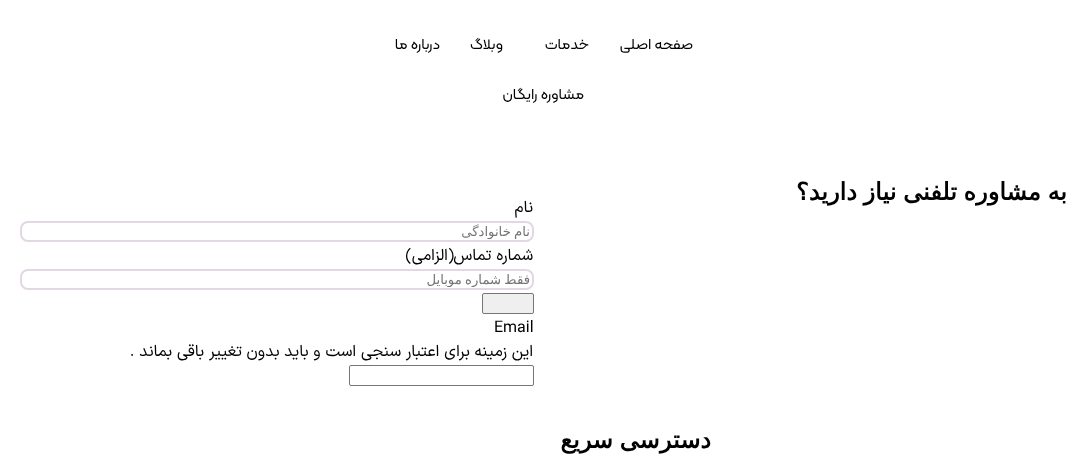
<?xml version="1.0" encoding="UTF-8"?>
<svg xmlns="http://www.w3.org/2000/svg" xmlns:xlink="http://www.w3.org/1999/xlink" width="1087" height="476">
  <defs>
    <clipPath id="clip1"><rect x="24" y="224" width="506" height="15" /></clipPath>
    <clipPath id="clip2"><rect x="24" y="272" width="506" height="15" /></clipPath>
  </defs>
  <rect width="100%" height="100%" fill="#ffffff" />
  <rect x="21" y="222" width="512" height="19" rx="7" fill="none" stroke="#e2d7e2" stroke-width="2" />
  <rect x="21" y="270" width="512" height="19" rx="7" fill="none" stroke="#e2d7e2" stroke-width="2" />
  <rect x="482.5" y="293.5" width="51" height="20" rx="1.5" fill="#efefef" stroke="#767676" />
  <rect x="349.5" y="365.5" width="184" height="20" rx="1.5" fill="none" stroke="#767676" />
  <text x="693" y="49" style="font-family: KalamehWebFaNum; font-size: 15px; direction: rtl; fill: #000000">صفحه اصلی</text>
  <text x="589" y="49" style="font-family: KalamehWebFaNum; font-size: 15px; direction: rtl; fill: #000000">خدمات</text>
  <text x="503" y="49" style="font-family: KalamehWebFaNum; font-size: 15px; direction: rtl; fill: #000000">وبلاگ</text>
  <text x="440" y="49" style="font-family: KalamehWebFaNum; font-size: 15px; direction: rtl; fill: #000000">درباره ما</text>
  <text x="584" y="99" style="font-family: KalamehWebFaNum; font-size: 15px; direction: rtl; fill: #000000">مشاوره رایگان</text>
  <text x="1067" y="200" word-spacing="-1" style="font-family: DejaVu Sans; font-size: 24px; font-weight: bold; direction: rtl; fill: #000000">به مشاوره</text>
  <text x="957" y="200" word-spacing="-1" style="font-family: DejaVu Sans; font-size: 24px; font-weight: bold; direction: rtl; fill: #000000">تلفنی نیاز دارید؟</text>
  <text x="533" y="212" style="font-family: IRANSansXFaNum; font-size: 16px; direction: rtl; fill: #000000">نام</text>
  <g clip-path="url(#clip1)">
    <text x="530" y="236" word-spacing="-1" style="font-family: DejaVu Sans; font-size: 13.25px; direction: rtl; fill: #757575">نام خانوادگی</text>
  </g>
  <text x="533" y="260" style="font-family: IRANSansXFaNum; font-size: 16px; direction: rtl; fill: #000000">شماره تماس</text>
  <text x="454" y="260" style="font-family: IRANSansXFaNum; font-size: 16px; direction: rtl; fill: #000000">(الزامی)</text>
  <g clip-path="url(#clip2)">
    <text x="530" y="284" word-spacing="-1" style="font-family: DejaVu Sans; font-size: 13.25px; direction: rtl; fill: #757575">فقط شماره موبایل</text>
  </g>
  <text x="494" y="332" style="font-family: IRANSansXFaNum; font-size: 16px; fill: #000000">Email</text>
  <text x="533" y="356" style="font-family: IRANSansXFaNum; font-size: 16px; direction: rtl; fill: #000000">این زمینه برای اعتبار سنجی است و باید بدون تغییر باقی بماند .</text>
  <text x="711" y="448" word-spacing="-1" style="font-family: DejaVu Sans; font-size: 24px; font-weight: bold; direction: rtl; fill: #000000">دسترسی سریع</text>
</svg>
